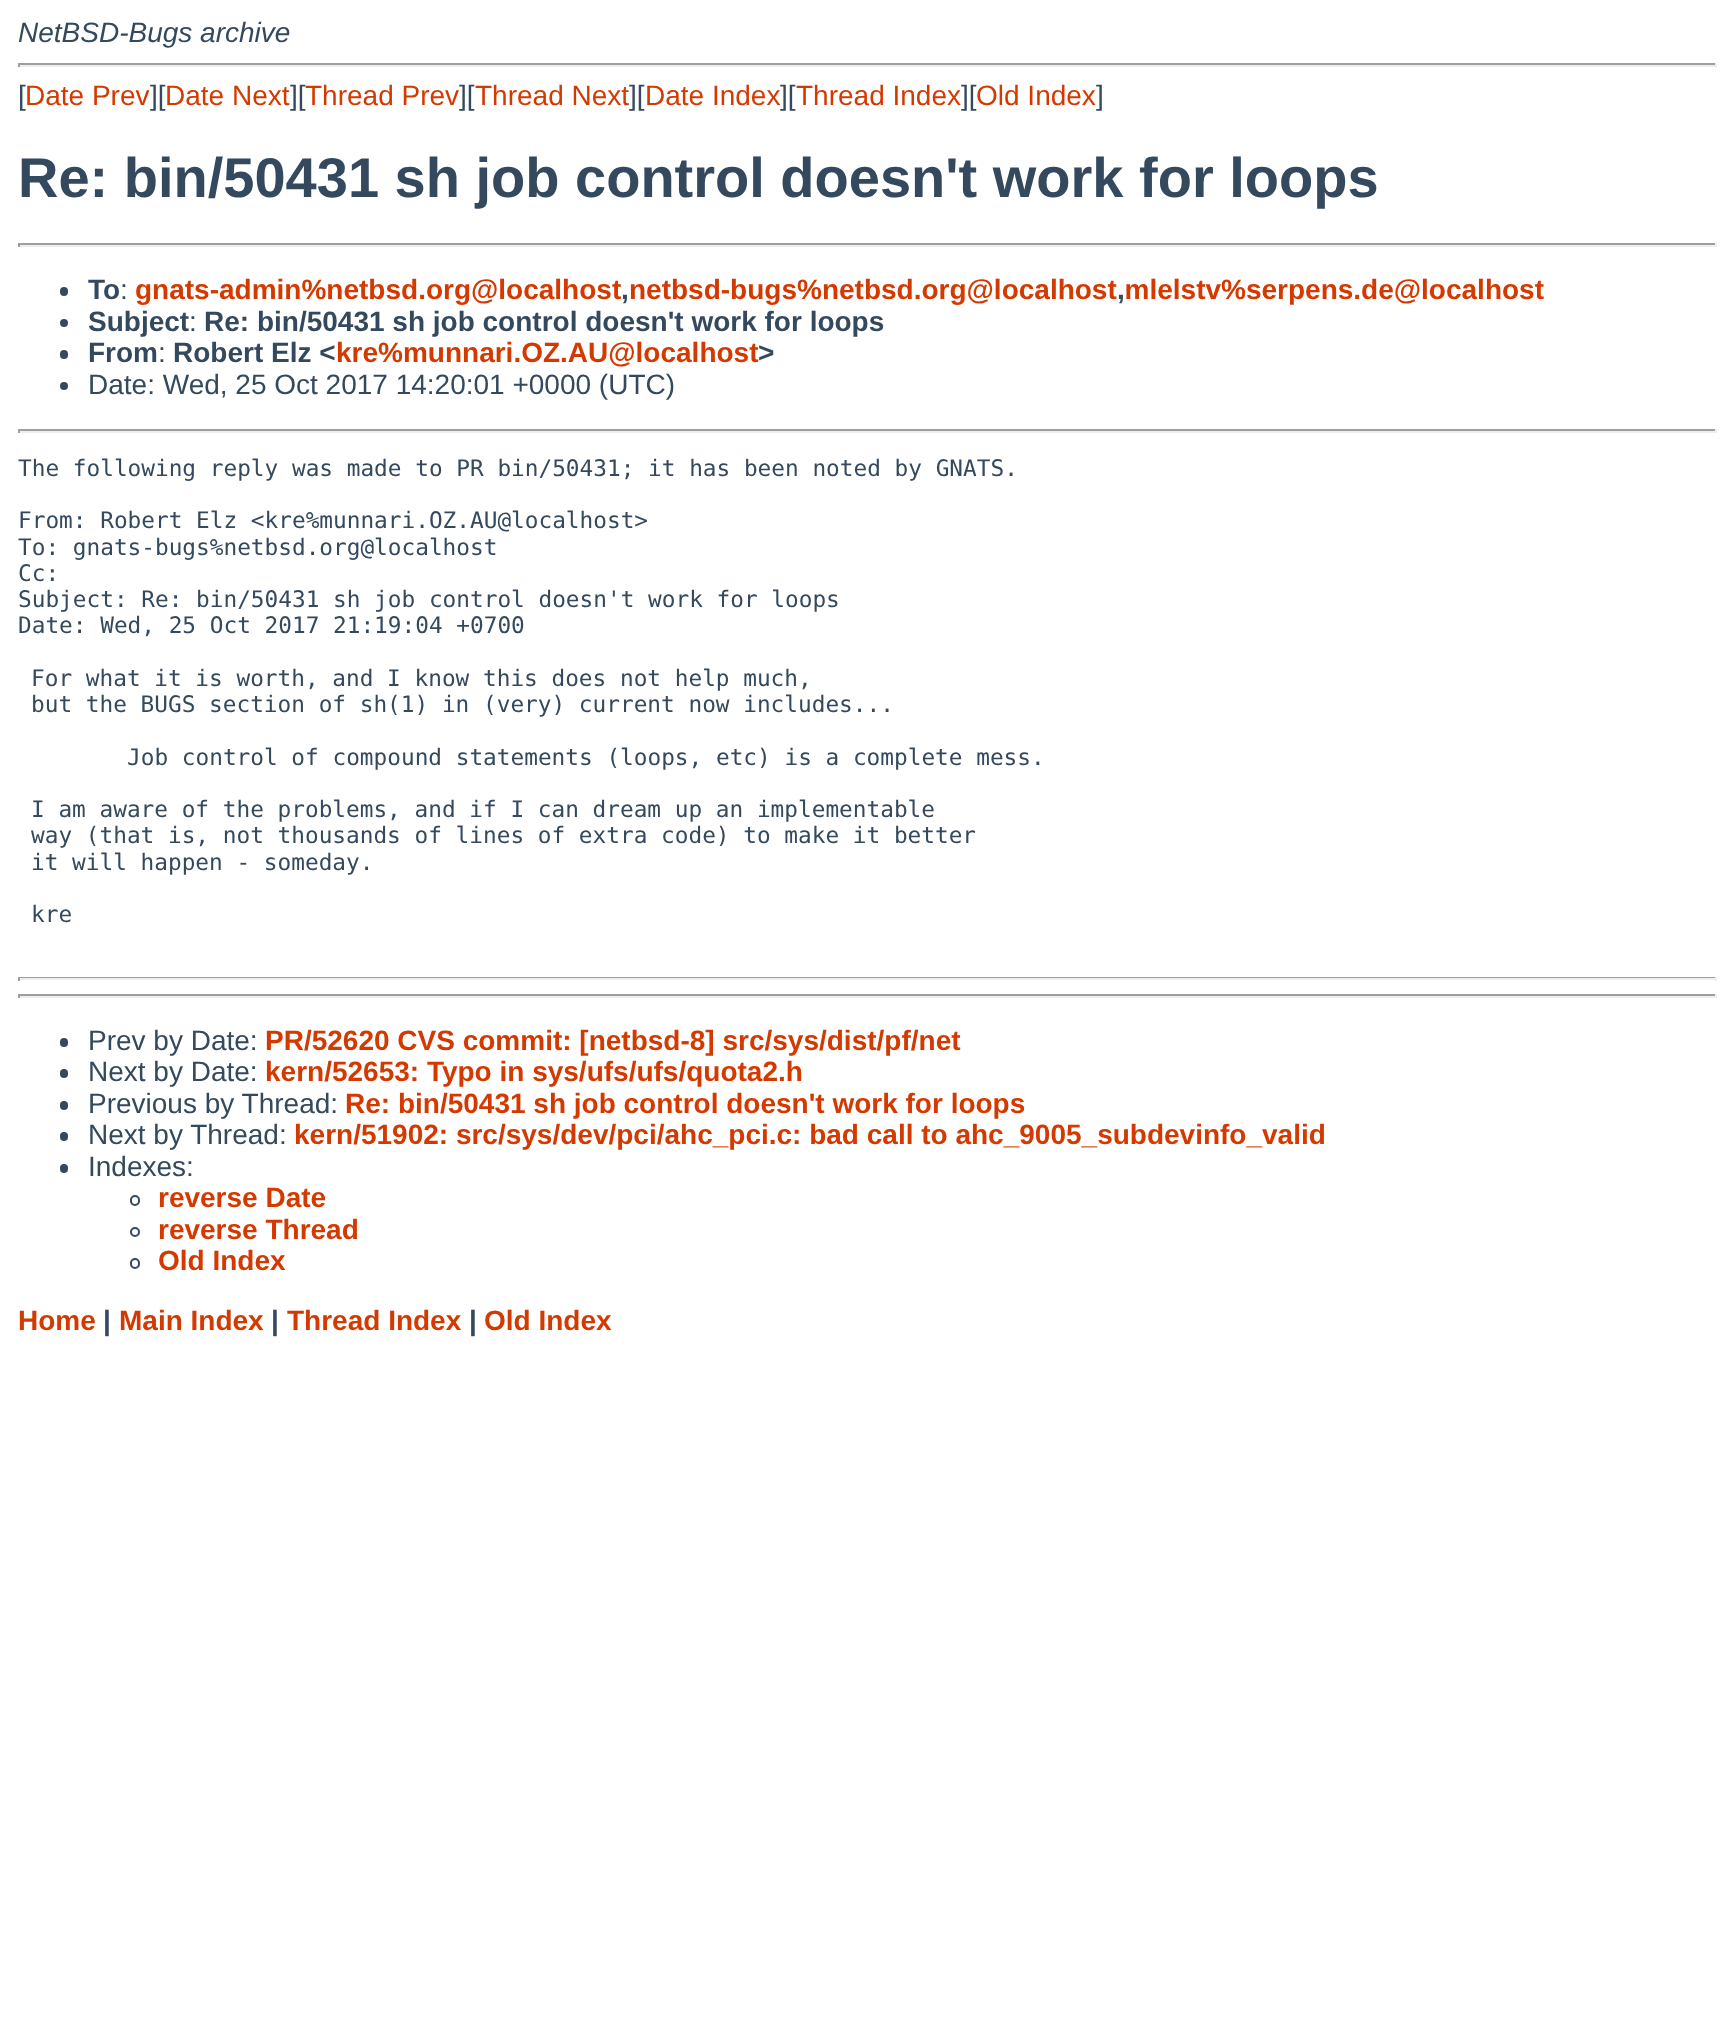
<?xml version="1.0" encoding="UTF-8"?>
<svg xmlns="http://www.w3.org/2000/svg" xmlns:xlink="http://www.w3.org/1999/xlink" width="1733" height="2028">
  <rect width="100%" height="100%" fill="#ffffff" />
  <rect x="18" y="63" width="1699" height="2" fill="#9f9f9f" />
  <rect x="1715" y="63" width="2" height="4" fill="#eeeeee" />
  <rect x="18" y="65" width="1699" height="2" fill="#eeeeee" />
  <rect x="18" y="63" width="2" height="4" fill="#9f9f9f" />
  <rect x="18" y="243" width="1699" height="2" fill="#9f9f9f" />
  <rect x="1715" y="243" width="2" height="4" fill="#eeeeee" />
  <rect x="18" y="245" width="1699" height="2" fill="#eeeeee" />
  <rect x="18" y="243" width="2" height="4" fill="#9f9f9f" />
  <rect x="60" y="287" width="8" height="9" rx="4" fill="#34495e" />
  <circle cx="64" cy="323" r="4" fill="#34495e" />
  <rect x="60" y="350" width="8" height="9" rx="4" fill="#34495e" />
  <circle cx="64" cy="386" r="4" fill="#34495e" />
  <rect x="18" y="429" width="1699" height="2" fill="#9f9f9f" />
  <rect x="1715" y="429" width="2" height="4" fill="#eeeeee" />
  <rect x="18" y="431" width="1699" height="2" fill="#eeeeee" />
  <rect x="18" y="429" width="2" height="4" fill="#9f9f9f" />
  <rect x="18" y="977" width="1699" height="1" fill="#9f9f9f" />
  <rect x="1715" y="977" width="2" height="4" fill="#eeeeee" />
  <rect x="18" y="978" width="1699" height="2" fill="#eeeeee" />
  <rect x="18" y="977" width="2" height="4" fill="#9f9f9f" />
  <rect x="18" y="994" width="1699" height="2" fill="#9f9f9f" />
  <rect x="1715" y="994" width="2" height="4" fill="#eeeeee" />
  <rect x="18" y="996" width="1699" height="2" fill="#eeeeee" />
  <rect x="18" y="994" width="2" height="4" fill="#9f9f9f" />
  <rect x="60" y="1038" width="8" height="9" rx="4" fill="#34495e" />
  <rect x="60" y="1069" width="8" height="9" rx="4" fill="#34495e" />
  <rect x="60" y="1101" width="8" height="9" rx="4" fill="#34495e" />
  <rect x="60" y="1132" width="8" height="9" rx="4" fill="#34495e" />
  <rect x="60" y="1164" width="8" height="9" rx="4" fill="#34495e" />
  <rect x="131" y="1196" width="8" height="9" rx="4" fill="none" stroke="#34495e" stroke-width="2" />
  <circle cx="135" cy="1232" r="4" fill="none" stroke="#34495e" stroke-width="2" />
  <rect x="131" y="1259" width="8" height="9" rx="4" fill="none" stroke="#34495e" stroke-width="2" />
  <text x="18" y="42" style="font-family: Liberation Sans; font-size: 28px; font-style: italic; fill: #34495e">NetBSD-Bugs archive</text>
  <text x="18" y="105" style="font-family: Liberation Sans; font-size: 28px; fill: #34495e">[</text>
  <text x="25" y="105" style="font-family: Liberation Sans; font-size: 28px; fill: #d43900">Date Prev</text>
  <text x="150" y="105" style="font-family: Liberation Sans; font-size: 28px; fill: #34495e">][</text>
  <text x="165" y="105" style="font-family: Liberation Sans; font-size: 28px; fill: #d43900">Date Next</text>
  <text x="290" y="105" style="font-family: Liberation Sans; font-size: 28px; fill: #34495e">][</text>
  <text x="305" y="105" style="font-family: Liberation Sans; font-size: 28px; fill: #d43900">Thread Prev</text>
  <text x="459" y="105" style="font-family: Liberation Sans; font-size: 28px; fill: #34495e">][</text>
  <text x="475" y="105" style="font-family: Liberation Sans; font-size: 28px; fill: #d43900">Thread Next</text>
  <text x="629" y="105" style="font-family: Liberation Sans; font-size: 28px; fill: #34495e">][</text>
  <text x="645" y="105" style="font-family: Liberation Sans; font-size: 28px; fill: #d43900">Date Index</text>
  <text x="780" y="105" style="font-family: Liberation Sans; font-size: 28px; fill: #34495e">][</text>
  <text x="796" y="105" style="font-family: Liberation Sans; font-size: 28px; fill: #d43900">Thread Index</text>
  <text x="961" y="105" style="font-family: Liberation Sans; font-size: 28px; fill: #34495e">][</text>
  <text x="976" y="105" style="font-family: Liberation Sans; font-size: 28px; fill: #d43900">Old Index</text>
  <text x="1096" y="105" style="font-family: Liberation Sans; font-size: 28px; fill: #34495e">]</text>
  <text x="18" y="197" style="font-family: Liberation Sans; font-size: 56px; font-weight: bold; fill: #34495e">Re: bin/50431 sh job control doesn't work for loops</text>
  <text x="88" y="299" style="font-family: Liberation Sans; font-size: 28px; font-weight: bold; fill: #34495e">To</text>
  <text x="120" y="299" style="font-family: Liberation Sans; font-size: 28px; fill: #34495e">:</text>
  <text x="135" y="299" style="font-family: Liberation Sans; font-size: 28px; font-weight: bold; fill: #d43900">gnats-admin%netbsd.org@localhost netbsd-bugs%netbsd.org@localhost mlelstv%serpens.de@localhost</text>
  <text x="621" y="299" style="font-family: Liberation Sans; font-size: 28px; font-weight: bold; fill: #34495e">,</text>
  <text x="1117" y="299" style="font-family: Liberation Sans; font-size: 28px; font-weight: bold; fill: #34495e">,</text>
  <text x="88" y="331" style="font-family: Liberation Sans; font-size: 28px; font-weight: bold; fill: #34495e">Subject</text>
  <text x="189" y="331" style="font-family: Liberation Sans; font-size: 28px; fill: #34495e">:</text>
  <text x="204" y="331" style="font-family: Liberation Sans; font-size: 28px; font-weight: bold; fill: #34495e">Re: bin/50431 sh job control doesn't work for loops</text>
  <text x="88" y="362" style="font-family: Liberation Sans; font-size: 28px; font-weight: bold; fill: #34495e">From</text>
  <text x="158" y="362" style="font-family: Liberation Sans; font-size: 28px; fill: #34495e">:</text>
  <text x="173" y="362" style="font-family: Liberation Sans; font-size: 28px; font-weight: bold; fill: #34495e">Robert Elz &lt;</text>
  <text x="336" y="362" style="font-family: Liberation Sans; font-size: 28px; font-weight: bold; fill: #d43900">kre%munnari.OZ.AU@localhost</text>
  <text x="758" y="362" style="font-family: Liberation Sans; font-size: 28px; font-weight: bold; fill: #34495e">&gt;</text>
  <text x="88" y="394" style="font-family: Liberation Sans; font-size: 28px; fill: #34495e">Date: Wed, 25 Oct 2017 14:20:01 +0000 (UTC)</text>
  <text x="18" y="476" style="font-family: DejaVu Sans Mono; font-size: 22.75px; fill: #34495e">The following reply was made to PR bin/50431; it has been noted by GNATS.</text>
  <text x="18" y="528" style="font-family: DejaVu Sans Mono; font-size: 22.75px; fill: #34495e">From: Robert Elz &lt;kre%munnari.OZ.AU@localhost&gt;</text>
  <text x="18" y="555" style="font-family: DejaVu Sans Mono; font-size: 22.75px; fill: #34495e">To: gnats-bugs%netbsd.org@localhost</text>
  <text x="18" y="581" style="font-family: DejaVu Sans Mono; font-size: 22.75px; fill: #34495e">Cc:</text>
  <text x="18" y="607" style="font-family: DejaVu Sans Mono; font-size: 22.75px; fill: #34495e">Subject: Re: bin/50431 sh job control doesn't work for loops</text>
  <text x="18" y="633" style="font-family: DejaVu Sans Mono; font-size: 22.75px; fill: #34495e">Date: Wed, 25 Oct 2017 21:19:04 +0700</text>
  <text x="31" y="686" style="font-family: DejaVu Sans Mono; font-size: 22.75px; fill: #34495e">For what it is worth, and I know this does not help much,</text>
  <text x="31" y="712" style="font-family: DejaVu Sans Mono; font-size: 22.75px; fill: #34495e">but the BUGS section of sh(1) in (very) current now includes...</text>
  <text x="127" y="765" style="font-family: DejaVu Sans Mono; font-size: 22.75px; fill: #34495e">Job control of compound statements (loops, etc) is a complete mess.</text>
  <text x="31" y="817" style="font-family: DejaVu Sans Mono; font-size: 22.75px; fill: #34495e">I am aware of the problems, and if I can dream up an implementable</text>
  <text x="31" y="843" style="font-family: DejaVu Sans Mono; font-size: 22.75px; fill: #34495e">way (that is, not thousands of lines of extra code) to make it better</text>
  <text x="31" y="870" style="font-family: DejaVu Sans Mono; font-size: 22.75px; fill: #34495e">it will happen - someday.</text>
  <text x="31" y="922" style="font-family: DejaVu Sans Mono; font-size: 22.75px; fill: #34495e">kre</text>
  <text x="88" y="1050" style="font-family: Liberation Sans; font-size: 28px; fill: #34495e">Prev by Date:</text>
  <text x="265" y="1050" style="font-family: Liberation Sans; font-size: 28px; font-weight: bold; fill: #d43900">PR/52620 CVS commit: [netbsd-8] src/sys/dist/pf/net</text>
  <text x="88" y="1081" style="font-family: Liberation Sans; font-size: 28px; fill: #34495e">Next by Date:</text>
  <text x="265" y="1081" style="font-family: Liberation Sans; font-size: 28px; font-weight: bold; fill: #d43900">kern/52653: Typo in sys/ufs/ufs/quota2.h</text>
  <text x="88" y="1113" style="font-family: Liberation Sans; font-size: 28px; fill: #34495e">Previous by Thread:</text>
  <text x="345" y="1113" style="font-family: Liberation Sans; font-size: 28px; font-weight: bold; fill: #d43900">Re: bin/50431 sh job control doesn't work for loops</text>
  <text x="88" y="1144" style="font-family: Liberation Sans; font-size: 28px; fill: #34495e">Next by Thread:</text>
  <text x="294" y="1144" style="font-family: Liberation Sans; font-size: 28px; font-weight: bold; fill: #d43900">kern/51902: src/sys/dev/pci/ahc_pci.c: bad call to ahc_9005_subdevinfo_valid</text>
  <text x="88" y="1176" style="font-family: Liberation Sans; font-size: 28px; fill: #34495e">Indexes:</text>
  <text x="158" y="1207" style="font-family: Liberation Sans; font-size: 28px; font-weight: bold; fill: #d43900">reverse Date</text>
  <text x="158" y="1239" style="font-family: Liberation Sans; font-size: 28px; font-weight: bold; fill: #d43900">reverse Thread</text>
  <text x="158" y="1270" style="font-family: Liberation Sans; font-size: 28px; font-weight: bold; fill: #d43900">Old Index</text>
  <text x="18" y="1330" style="font-family: Liberation Sans; font-size: 28px; font-weight: bold; fill: #d43900">Home</text>
  <text x="103" y="1330" style="font-family: Liberation Sans; font-size: 28px; font-weight: bold; fill: #34495e">|</text>
  <text x="119" y="1330" style="font-family: Liberation Sans; font-size: 28px; font-weight: bold; fill: #d43900">Main Index</text>
  <text x="271" y="1330" style="font-family: Liberation Sans; font-size: 28px; font-weight: bold; fill: #34495e">|</text>
  <text x="287" y="1330" style="font-family: Liberation Sans; font-size: 28px; font-weight: bold; fill: #d43900">Thread Index</text>
  <text x="469" y="1330" style="font-family: Liberation Sans; font-size: 28px; font-weight: bold; fill: #34495e">|</text>
  <text x="484" y="1330" style="font-family: Liberation Sans; font-size: 28px; font-weight: bold; fill: #d43900">Old Index</text>
</svg>
